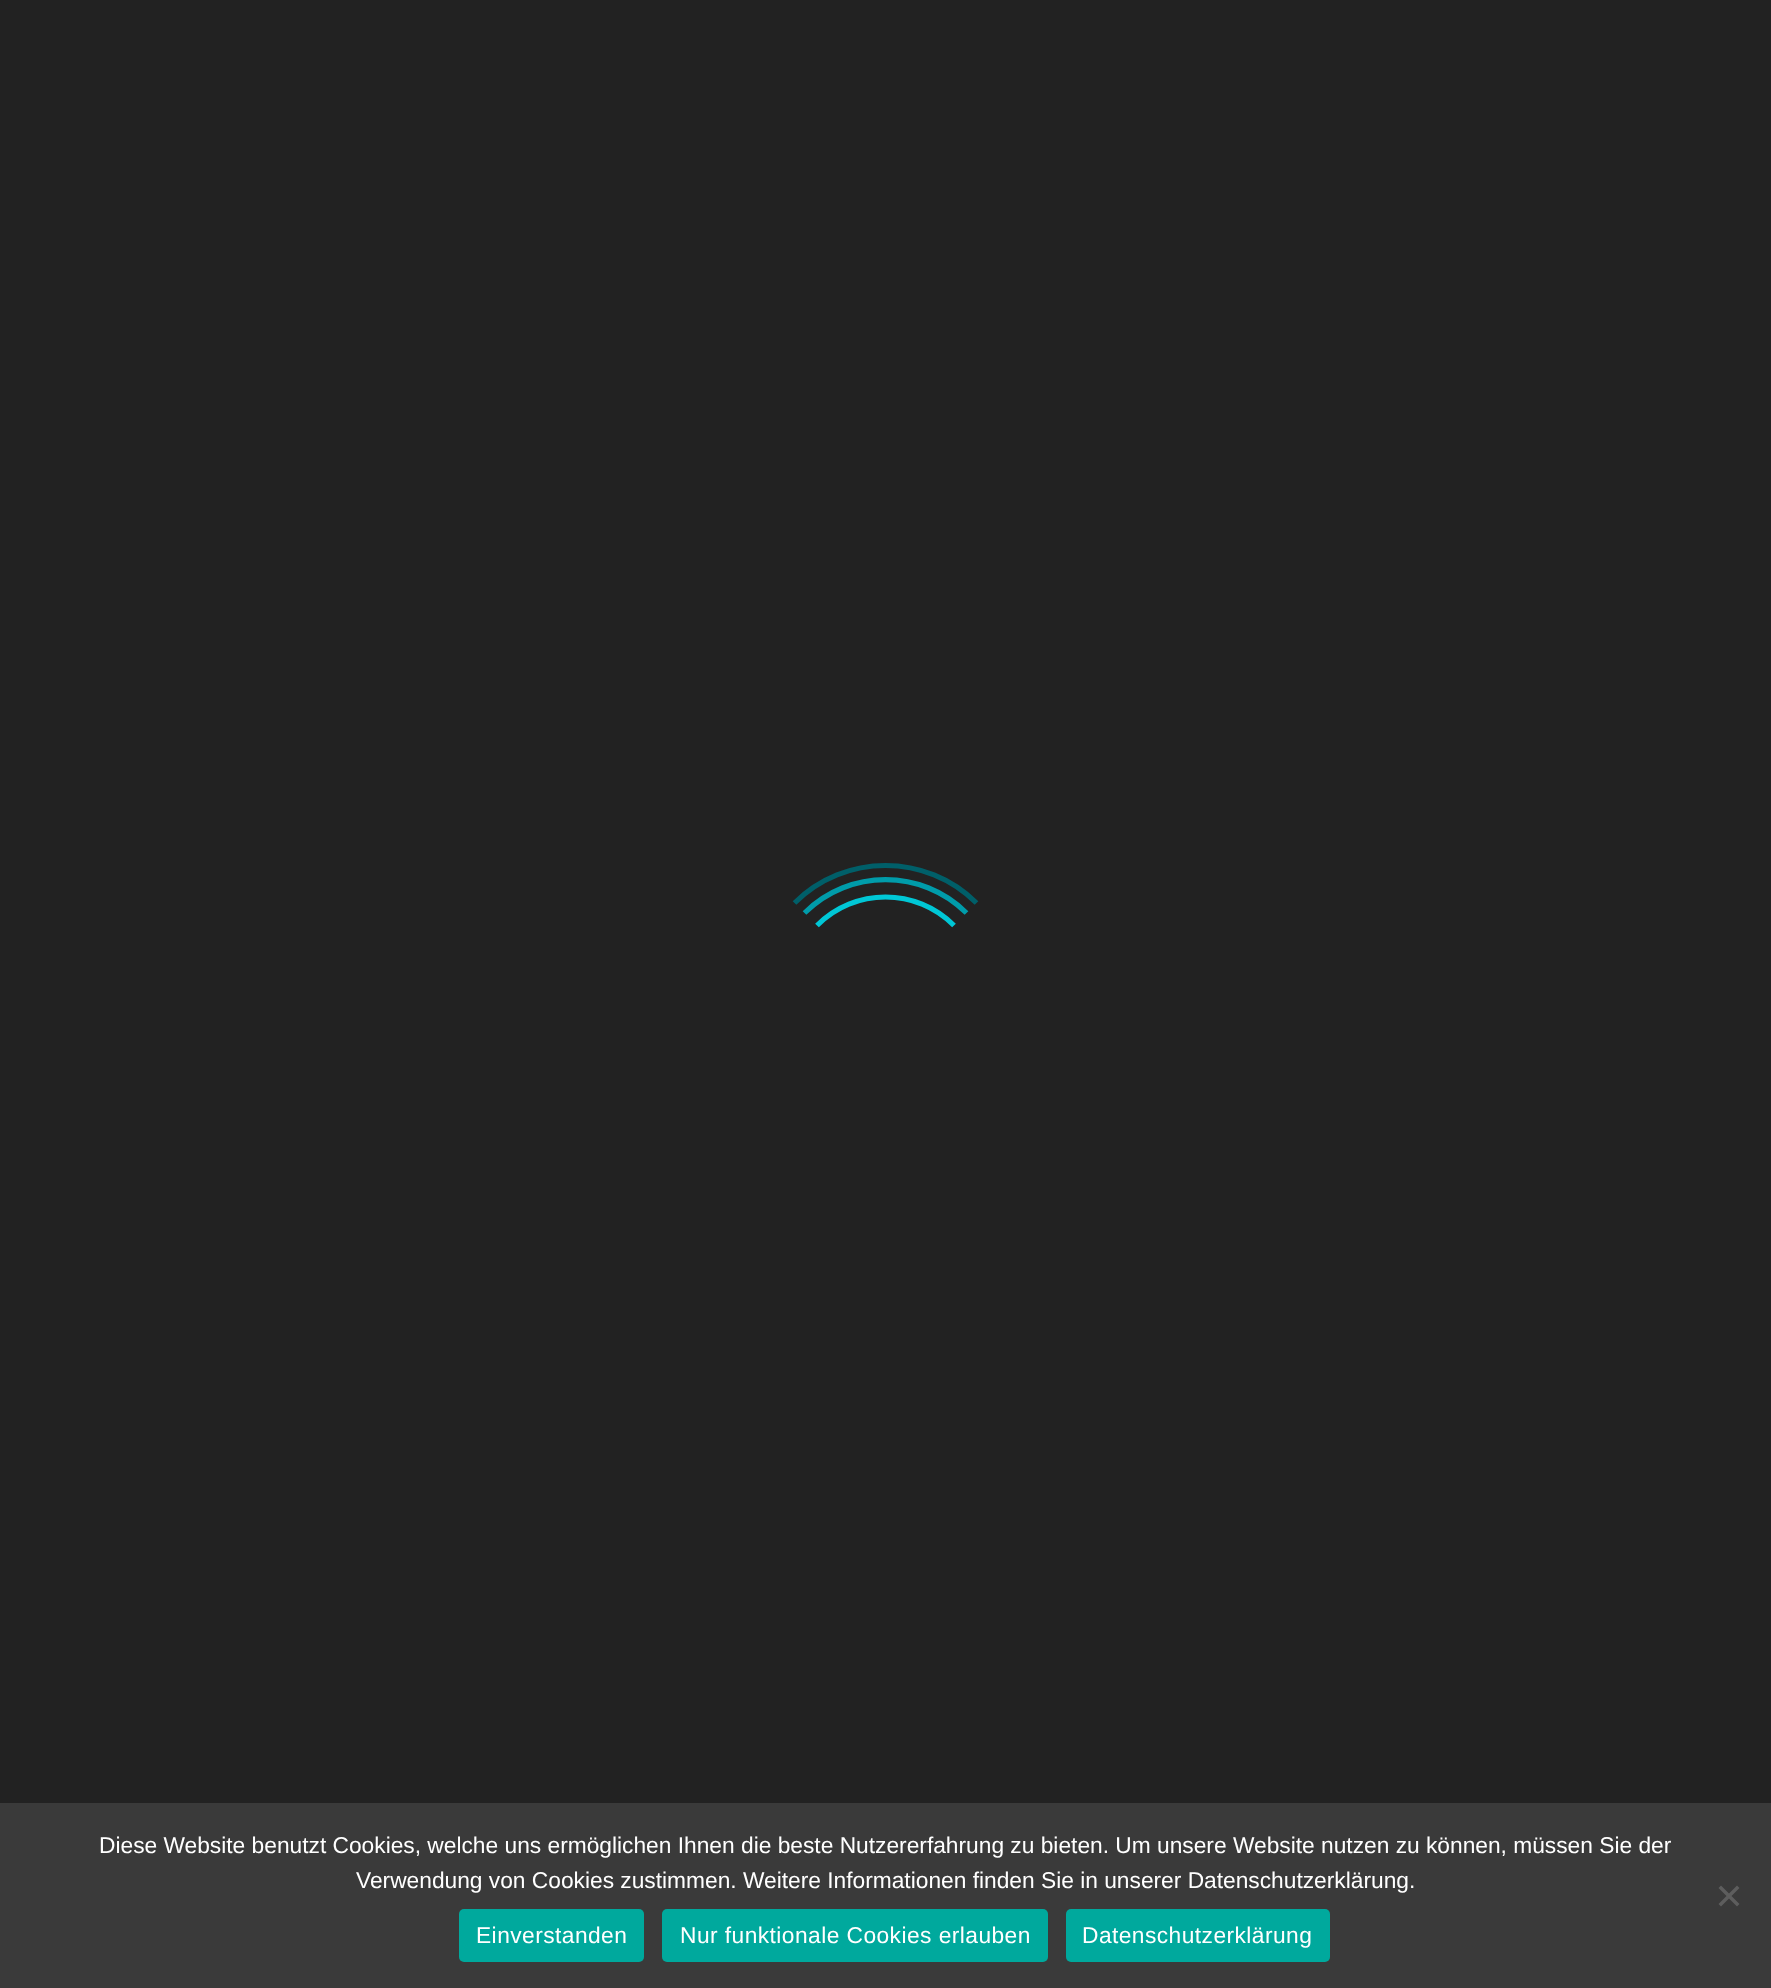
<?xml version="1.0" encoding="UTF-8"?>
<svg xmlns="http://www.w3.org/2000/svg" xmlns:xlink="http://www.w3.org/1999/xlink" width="1771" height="1988">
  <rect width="100%" height="100%" fill="#222222" />
  <path d="M 794.5 903 c 50 -50 132 -50 182 0" fill="none" stroke="#005f69" stroke-width="5.2" />
  <path d="M 804.5 913 c 44.5 -44.5 117.5 -44.5 162 0" fill="none" stroke="#009caa" stroke-width="5.2" />
  <path d="M 817 925.5 c 37.5 -38 99.5 -38 137 0" fill="none" stroke="#00c7d6" stroke-width="5.2" />
  <rect y="1803" width="1771" height="185" fill="#3a3a3a" />
  <path d="M 1737 1885.5 l 2.5 2.5 l -18.5 18.5 l -2.5 -2.5 z" fill="#5d5d5d" />
  <path d="M 1718.5 1888 l 2.5 -2.5 l 18.5 18.5 l -2.5 2.5 z" fill="#5d5d5d" />
  <rect x="459" y="1909" width="185" height="53" rx="5" fill="#00a99d" />
  <rect x="662" y="1909" width="386" height="53" rx="5" fill="#00a99d" />
  <rect x="1066" y="1909" width="264" height="53" rx="5" fill="#00a99d" />
  <text x="99" y="1853" style="font-family: Liberation Sans; font-size: 22.75px; fill: #ffffff">Diese Website benutzt Cookies, welche uns ermöglichen Ihnen die beste Nutzererfahrung zu bieten. Um unsere Website nutzen zu können, müssen Sie der</text>
  <text x="356" y="1888" style="font-family: Liberation Sans; font-size: 22.75px; fill: #ffffff">Verwendung von Cookies zustimmen. Weitere Informationen finden Sie in unserer Datenschutzerklärung.</text>
  <text x="476" y="1943" style="font-family: Liberation Sans; font-size: 22.75px; letter-spacing: 0.45px; fill: #ffffff">Einverstanden</text>
  <text x="680" y="1943" style="font-family: Liberation Sans; font-size: 22.75px; letter-spacing: 0.45px; fill: #ffffff">Nur funktionale Cookies erlauben</text>
  <text x="1082" y="1943" style="font-family: Liberation Sans; font-size: 22.75px; letter-spacing: 0.45px; fill: #ffffff">Datenschutzerklärung</text>
</svg>
